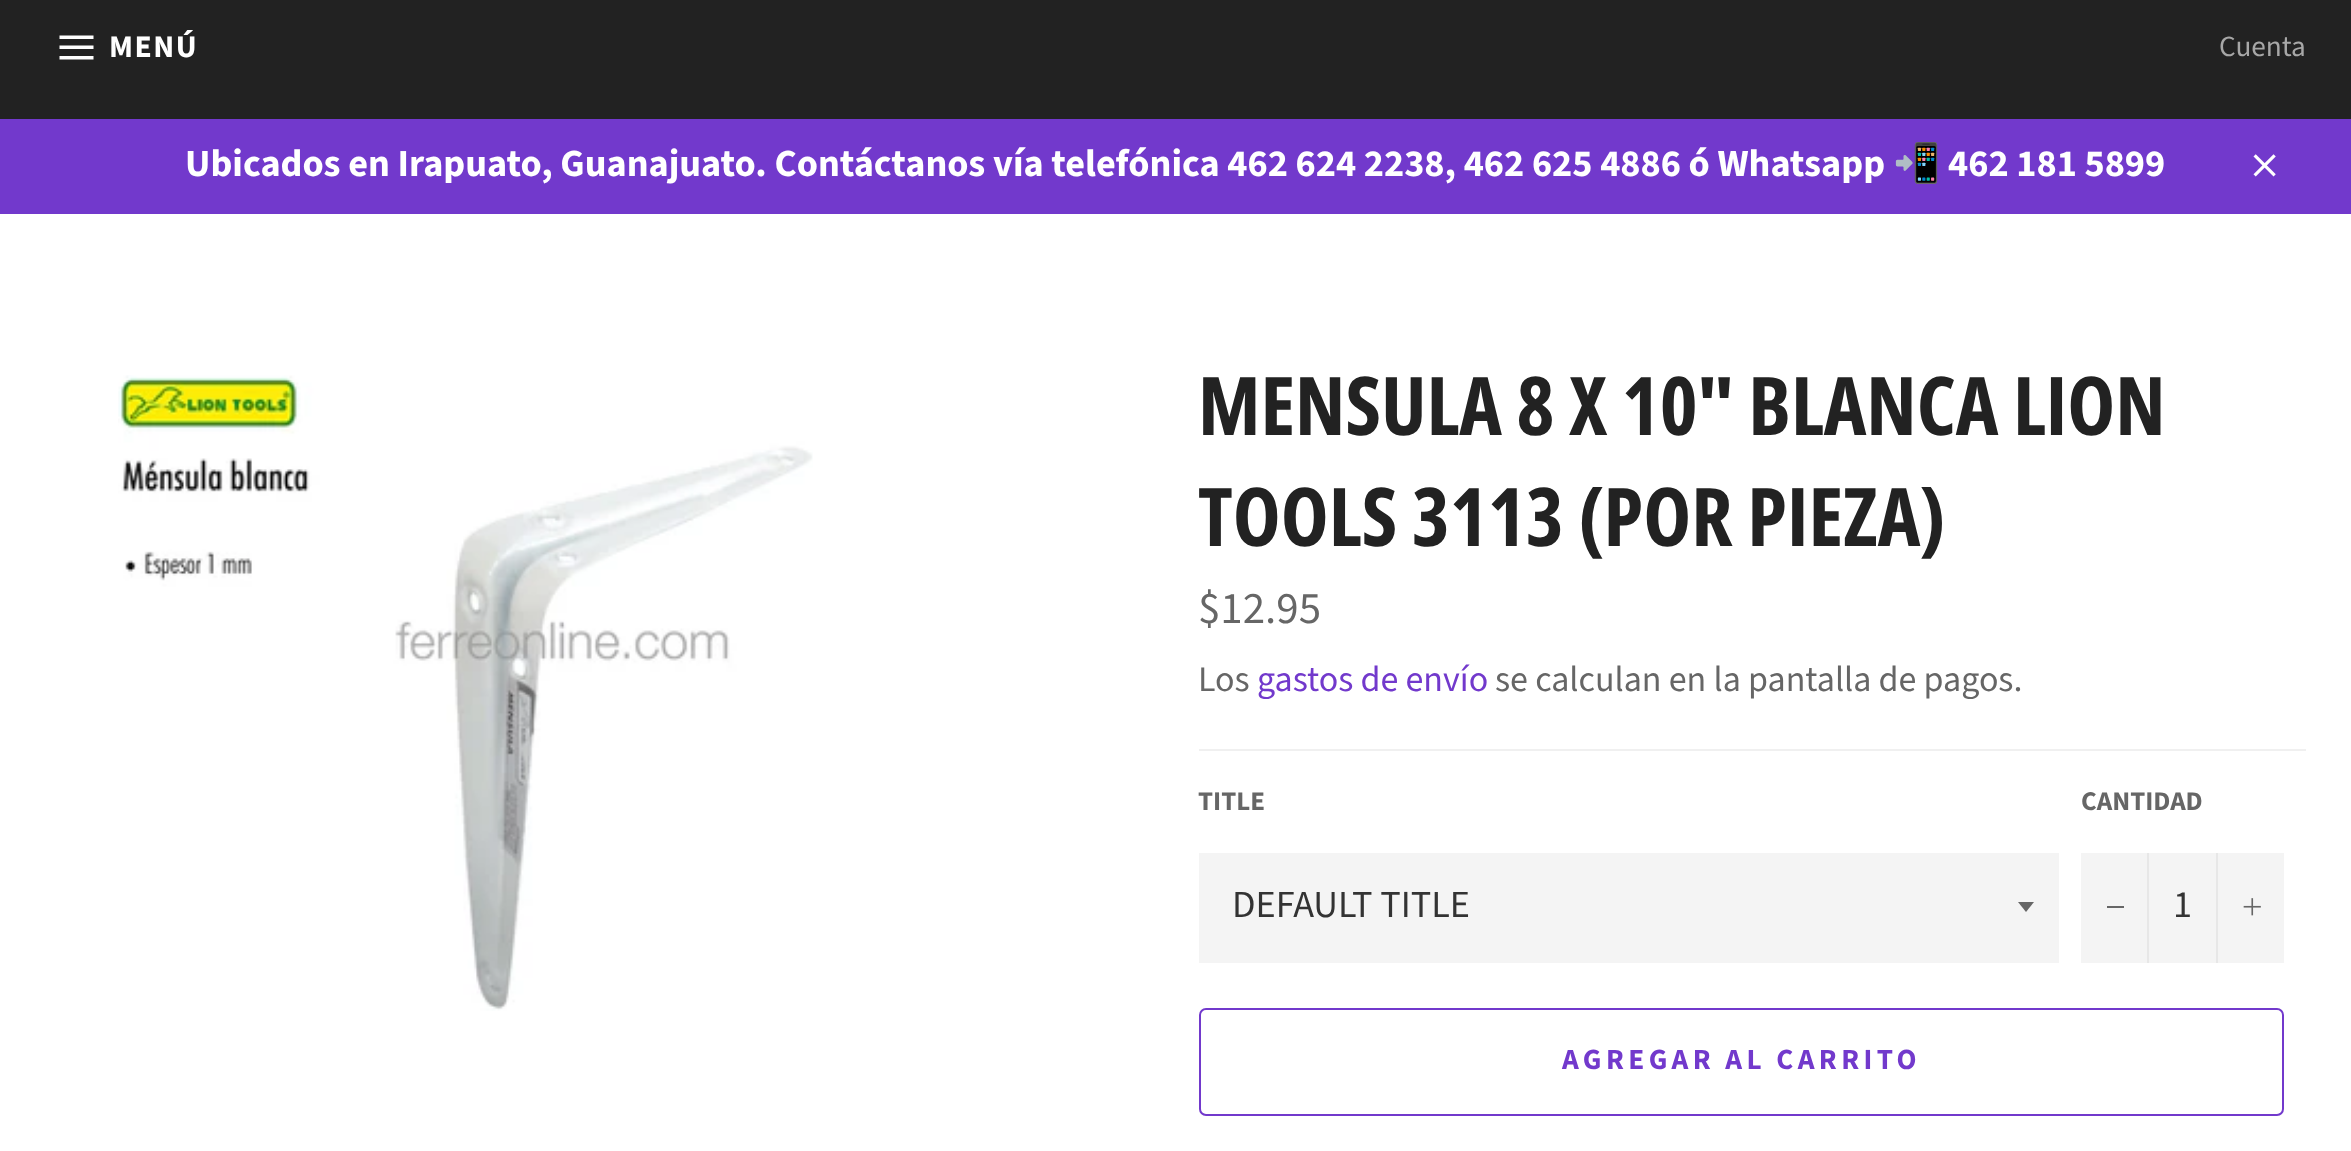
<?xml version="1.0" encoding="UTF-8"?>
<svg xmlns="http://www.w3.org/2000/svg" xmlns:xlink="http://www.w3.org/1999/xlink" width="2351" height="1151">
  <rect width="100%" height="100%" fill="#7239cc" />
  <rect width="2351" height="119" fill="#222222" />
  <path d="M 59.5 45.5 h 34 v 3.5 h -34 z m 0 -10 h 34 v 3.5 h -34 z m 0 20.5 h 34 v 3.5 h -34 z" fill="#ffffff" />
  <image x="2253" y="154" width="23" height="23" xlink:href="image1.png" />
  <rect y="214" width="2351" height="937" fill="#ffffff" />
  <image x="118" y="375" width="695" height="636" xlink:href="image2.png" />
  <rect x="1199" y="749" width="1107" height="2" fill="#f0f0f0" />
  <rect x="1199" y="853" width="860" height="110" fill="#f4f4f4" />
  <path d="M 2018 902 l 8 10 l 8 -10 z" fill="#666666" />
  <rect x="2081" y="853" width="203" height="110" fill="#f4f4f4" />
  <rect x="2147" y="853" width="2" height="110" fill="#e7e7e7" />
  <rect x="2107" y="906" width="17" height="2" fill="#666666" />
  <rect x="2216" y="853" width="2" height="110" fill="#e7e7e7" />
  <image x="2243" y="898" width="18" height="18" xlink:href="image3.png" />
  <rect x="1200" y="1009" width="1083" height="106" rx="6" fill="none" stroke="#7239cc" stroke-width="2" />
  <text x="109" y="57" style="font-family: Source Sans Pro; font-size: 31.5px; font-weight: bold; letter-spacing: 1.5px; fill: #ffffff">MENÚ</text>
  <text x="2219" y="56" style="font-family: Source Sans Pro; font-size: 29.25px; fill: #a7a7a7">Cuenta</text>
  <text x="185" y="176" style="font-family: Source Sans Pro; font-size: 38.25px; font-weight: bold; fill: #ffffff">Ubicados en Irapuato, Guanajuato. Contáctanos vía telefónica 462 624 2238, 462 625 4886 ó Whatsapp</text>
  <text x="1893" y="176" style="font-family: Noto Color Emoji; font-size: 38.25px; font-weight: bold; fill: #ffffff">📲</text>
  <text x="1948" y="176" style="font-family: Source Sans Pro; font-size: 38.25px; font-weight: bold; fill: #ffffff">462 181 5899</text>
  <text x="1198" y="435" style="font-family: Open Sans Condensed; font-size: 81px; font-weight: bold; fill: #222222">MENSULA 8 X 10" BLANCA LION</text>
  <text x="1198" y="546" style="font-family: Open Sans Condensed; font-size: 81px; font-weight: bold; fill: #222222">TOOLS 3113 (POR PIEZA)</text>
  <text x="1198" y="623" style="font-family: Source Sans Pro; font-size: 45px; fill: #666666">$12.95</text>
  <text x="1198" y="691" style="font-family: Source Sans Pro; font-size: 36px; fill: #666666">Los</text>
  <text x="1257" y="691" style="font-family: Source Sans Pro; font-size: 36px; fill: #7239cc">gastos de envío</text>
  <text x="1495" y="691" style="font-family: Source Sans Pro; font-size: 36px; fill: #666666">se calculan en la pantalla de pagos.</text>
  <text x="1198" y="810" style="font-family: Source Sans Pro; font-size: 27px; font-weight: bold; fill: #666666">TITLE</text>
  <text x="1232" y="917" style="font-family: Source Sans Pro; font-size: 38.25px; fill: #333333">DEFAULT TITLE</text>
  <text x="2081" y="810" style="font-family: Source Sans Pro; font-size: 27px; font-weight: bold; fill: #666666">CANTIDAD</text>
  <text x="2173" y="917" style="font-family: Source Sans Pro; font-size: 38.25px; fill: #333333">1</text>
  <text x="1562" y="1069" style="font-family: Source Sans Pro; font-size: 29.25px; font-weight: bold; letter-spacing: 4.4px; fill: #7239cc">AGREGAR AL CARRITO</text>
</svg>
